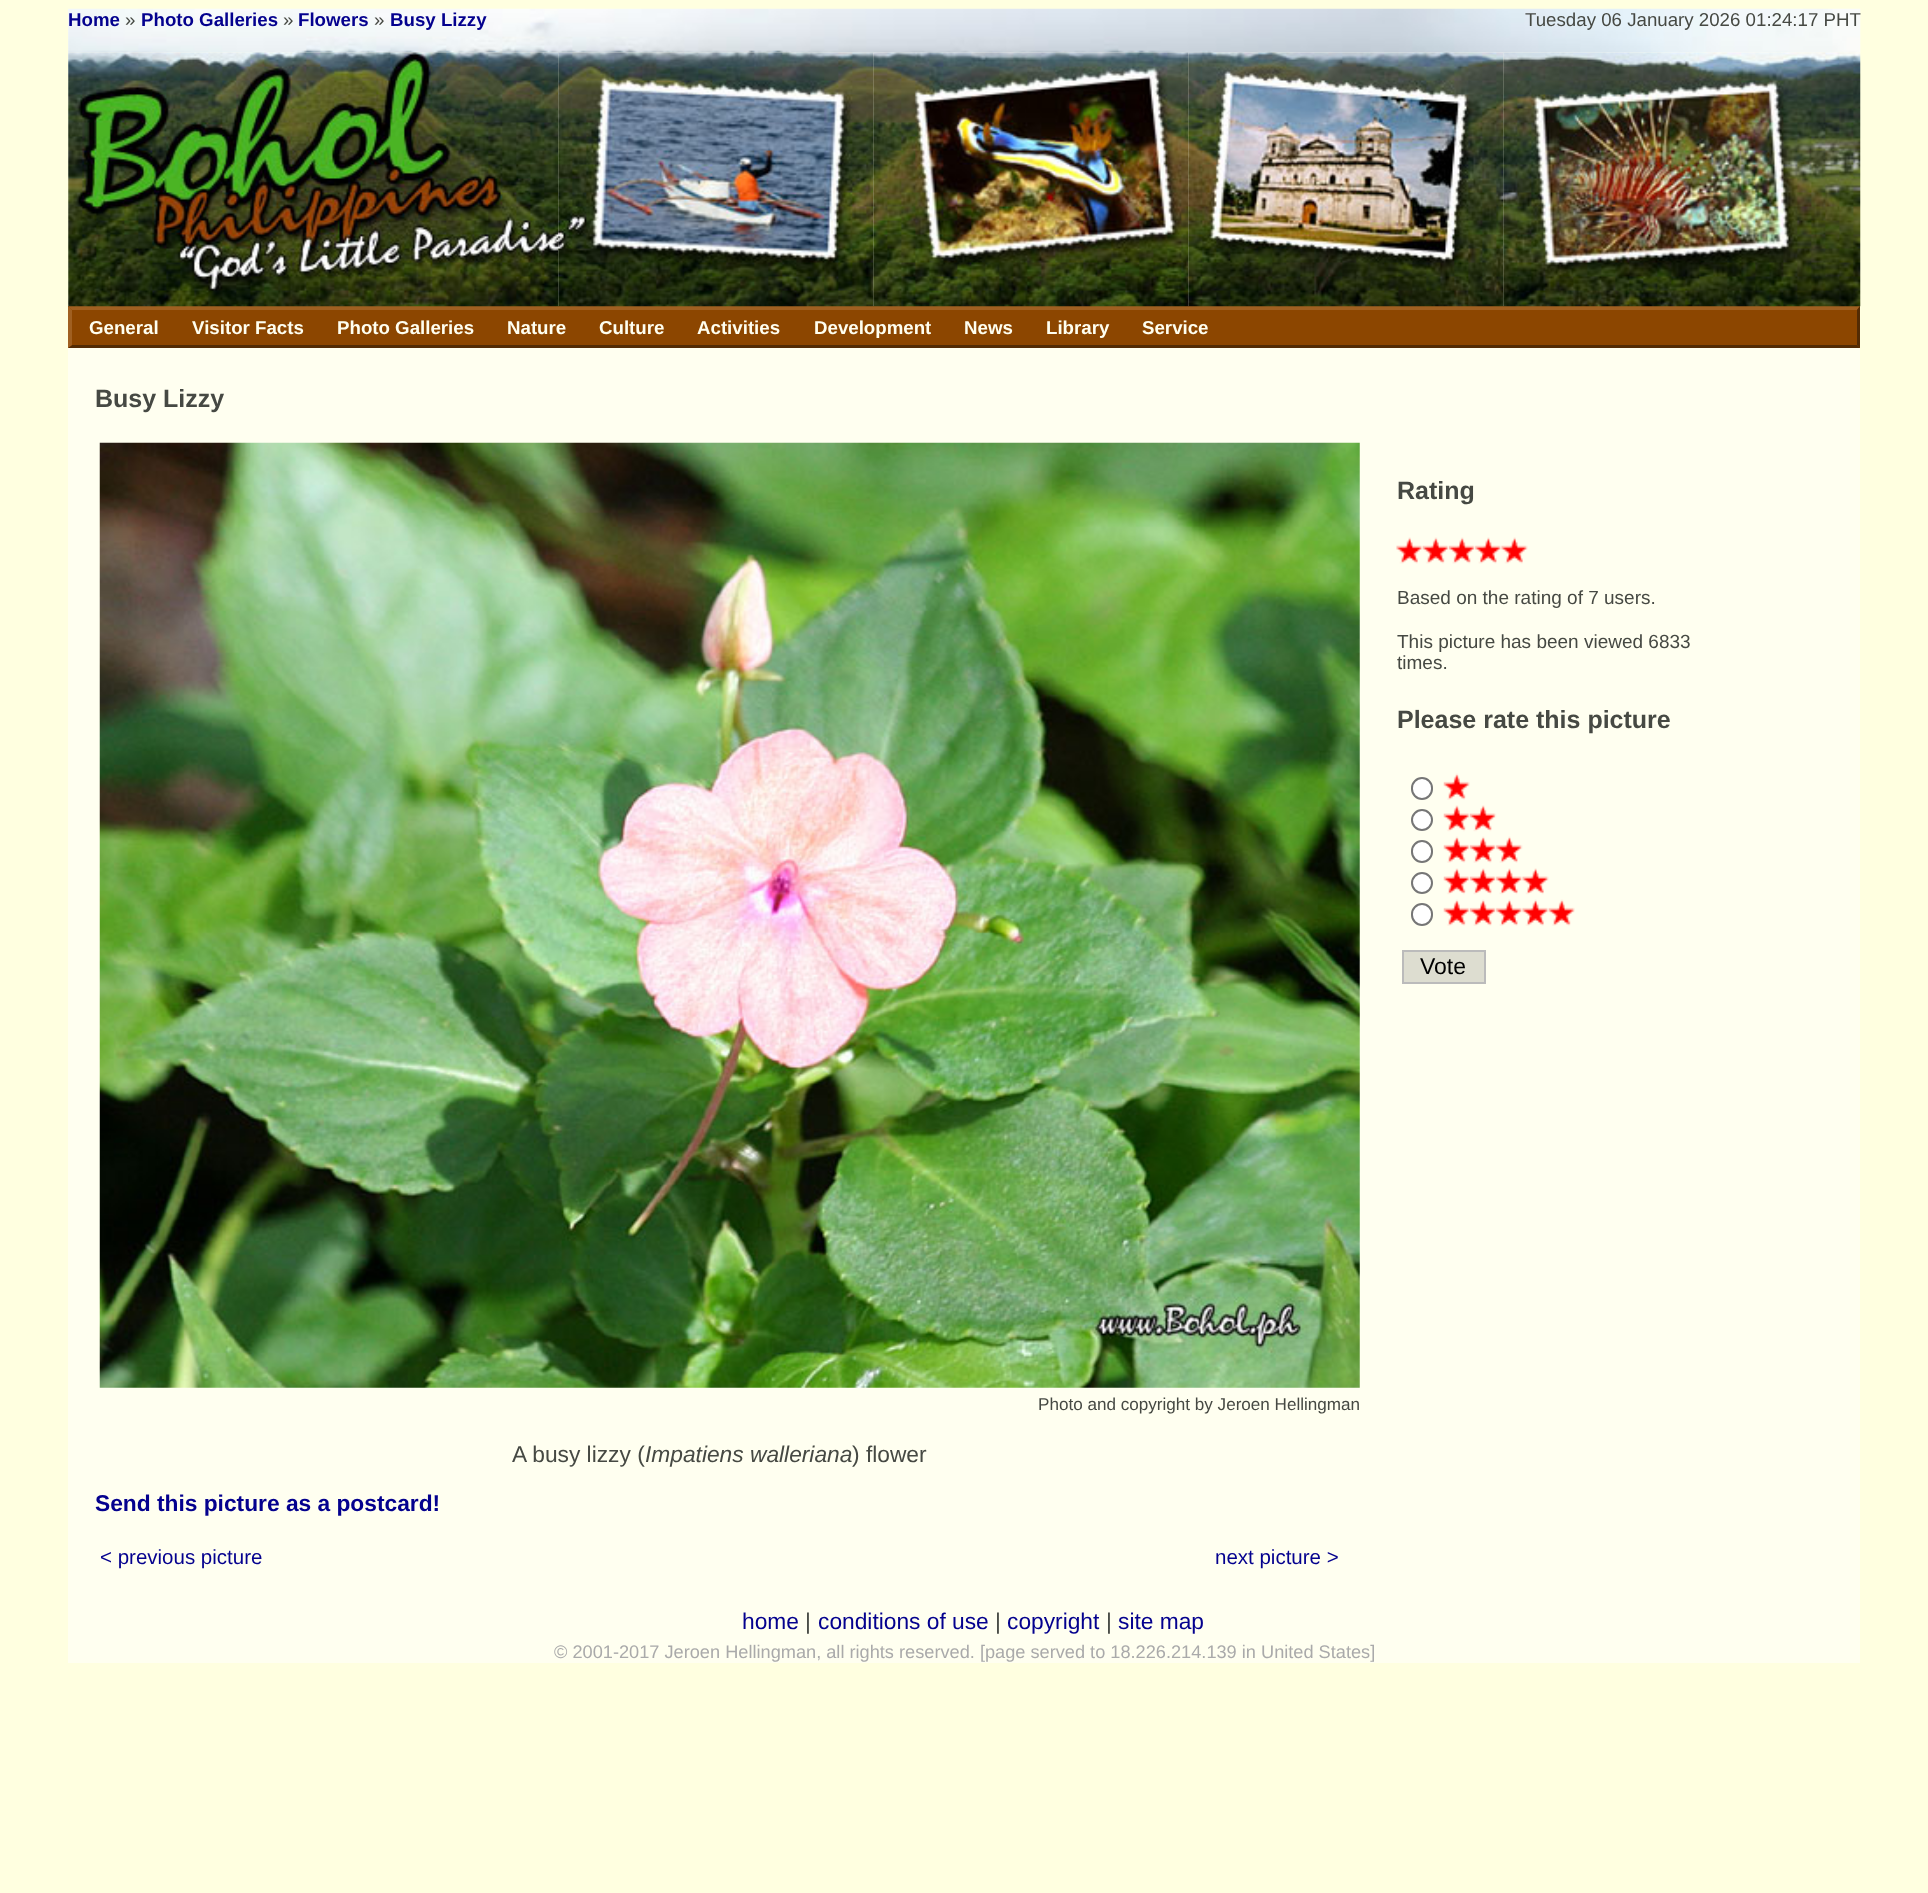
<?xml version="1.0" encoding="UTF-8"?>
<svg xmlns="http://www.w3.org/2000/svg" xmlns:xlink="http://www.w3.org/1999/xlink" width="1928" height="1893">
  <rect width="100%" height="100%" fill="#ffffe0" />
  <rect x="68" y="9" width="1792" height="1654" fill="#fffff0" />
  <image x="68" y="8" width="1793" height="45" xlink:href="image1.png" />
  <rect x="68" y="306" width="1792" height="42" fill="#8c4600" />
  <path d="M 68 306 h 1792 l -3 4 h -1785 z" fill="#a06021" />
  <path d="M 1860 306 v 42 l -3 -3 v -35 z" fill="#522b04" />
  <path d="M 1860 348 h -1792 l 4 -3 h 1785 z" fill="#522b04" />
  <path d="M 68 348 v -42 l 4 4 v 35 z" fill="#a06021" />
  <image x="68" y="52" width="491" height="255" xlink:href="image2.png" />
  <image x="558" y="52" width="316" height="255" xlink:href="image3.png" />
  <image x="873" y="52" width="316" height="255" xlink:href="image4.png" />
  <image x="1188" y="52" width="316" height="255" xlink:href="image5.png" />
  <image x="1503" y="52" width="358" height="255" xlink:href="image6.png" />
  <image x="99" y="442" width="1261" height="946" xlink:href="image7.png" />
  <image x="1396" y="537" width="27" height="27" xlink:href="image8.png" />
  <image x="1422" y="537" width="27" height="27" xlink:href="image9.png" />
  <image x="1449" y="537" width="27" height="27" xlink:href="image10.png" />
  <image x="1475" y="537" width="27" height="27" xlink:href="image11.png" />
  <image x="1501" y="537" width="27" height="27" xlink:href="image12.png" />
  <rect x="1412" y="778" width="20" height="21" rx="10" fill="#ffffff" stroke="#767676" stroke-width="2" />
  <image x="1443" y="773" width="27" height="27" xlink:href="image13.png" />
  <circle cx="1422" cy="820" r="10" fill="#ffffff" stroke="#767676" stroke-width="2" />
  <image x="1443" y="805" width="27" height="27" xlink:href="image14.png" />
  <image x="1470" y="805" width="27" height="27" xlink:href="image15.png" />
  <rect x="1412" y="841" width="20" height="21" rx="10" fill="#ffffff" stroke="#767676" stroke-width="2" />
  <image x="1443" y="836" width="27" height="27" xlink:href="image13.png" />
  <image x="1470" y="836" width="27" height="27" xlink:href="image16.png" />
  <image x="1496" y="836" width="27" height="27" xlink:href="image17.png" />
  <circle cx="1422" cy="883" r="10" fill="#ffffff" stroke="#767676" stroke-width="2" />
  <image x="1443" y="868" width="27" height="27" xlink:href="image14.png" />
  <image x="1470" y="868" width="27" height="27" xlink:href="image15.png" />
  <image x="1496" y="868" width="27" height="27" xlink:href="image18.png" />
  <image x="1522" y="868" width="27" height="27" xlink:href="image19.png" />
  <rect x="1412" y="904" width="20" height="21" rx="10" fill="#ffffff" stroke="#767676" stroke-width="2" />
  <image x="1443" y="899" width="27" height="27" xlink:href="image13.png" />
  <image x="1470" y="899" width="27" height="27" xlink:href="image16.png" />
  <image x="1496" y="899" width="27" height="27" xlink:href="image17.png" />
  <image x="1522" y="899" width="27" height="27" xlink:href="image20.png" />
  <image x="1548" y="899" width="27" height="27" xlink:href="image21.png" />
  <rect x="1403" y="951" width="82" height="32" fill="#ddddd0" stroke="#bbbbbb" stroke-width="2" />
  <text x="68" y="26" style="font-family: Liberation Sans; font-size: 18.7px; font-weight: bold; fill: #04018e">Home</text>
  <text x="125" y="26" style="font-family: Liberation Sans; font-size: 18.7px; fill: #464943">»</text>
  <text x="141" y="26" style="font-family: Liberation Sans; font-size: 18.7px; font-weight: bold; fill: #04018e">Photo Galleries</text>
  <text x="283" y="26" style="font-family: Liberation Sans; font-size: 18.7px; fill: #464943">»</text>
  <text x="298" y="26" style="font-family: Liberation Sans; font-size: 18.7px; font-weight: bold; fill: #04018e">Flowers</text>
  <text x="374" y="26" style="font-family: Liberation Sans; font-size: 18.7px; fill: #464943">»</text>
  <text x="390" y="26" style="font-family: Liberation Sans; font-size: 18.7px; font-weight: bold; fill: #04018e">Busy Lizzy</text>
  <text x="1525" y="26" style="font-family: Liberation Sans; font-size: 18.7px; fill: #464943">Tuesday 06 January 2026 01:24:17 PHT</text>
  <text x="89" y="334" style="font-family: Liberation Sans; font-size: 18.7px; font-weight: bold; fill: #fffff0">General</text>
  <text x="192" y="334" style="font-family: Liberation Sans; font-size: 18.7px; font-weight: bold; fill: #fffff0">Visitor Facts</text>
  <text x="337" y="334" style="font-family: Liberation Sans; font-size: 18.7px; font-weight: bold; fill: #fffff0">Photo Galleries</text>
  <text x="507" y="334" style="font-family: Liberation Sans; font-size: 18.7px; font-weight: bold; fill: #fffff0">Nature</text>
  <text x="599" y="334" style="font-family: Liberation Sans; font-size: 18.7px; font-weight: bold; fill: #fffff0">Culture</text>
  <text x="697" y="334" style="font-family: Liberation Sans; font-size: 18.7px; font-weight: bold; fill: #fffff0">Activities</text>
  <text x="814" y="334" style="font-family: Liberation Sans; font-size: 18.7px; font-weight: bold; fill: #fffff0">Development</text>
  <text x="964" y="334" style="font-family: Liberation Sans; font-size: 18.7px; font-weight: bold; fill: #fffff0">News</text>
  <text x="1046" y="334" style="font-family: Liberation Sans; font-size: 18.7px; font-weight: bold; fill: #fffff0">Library</text>
  <text x="1142" y="334" style="font-family: Liberation Sans; font-size: 18.7px; font-weight: bold; fill: #fffff0">Service</text>
  <text x="95" y="407" style="font-family: Liberation Sans; font-size: 25px; font-weight: bold; fill: #464943">Busy Lizzy</text>
  <text x="1038" y="1410" style="font-family: Liberation Sans; font-size: 17.1px; fill: #464943">Photo and copyright by Jeroen Hellingman</text>
  <text x="512" y="1462" style="font-family: Liberation Sans; font-size: 22.75px; fill: #464943">A busy lizzy (</text>
  <text x="645" y="1462" style="font-family: Liberation Sans; font-size: 22.75px; font-style: italic; fill: #464943">Impatiens walleriana</text>
  <text x="852" y="1462" style="font-family: Liberation Sans; font-size: 22.75px; fill: #464943">) flower</text>
  <text x="95" y="1511" style="font-family: Liberation Sans; font-size: 22.75px; font-weight: bold; fill: #04018e">Send this picture as a postcard!</text>
  <text x="100" y="1564" style="font-family: Liberation Sans; font-size: 20.5px; fill: #04018e">&lt; previous picture</text>
  <text x="1215" y="1564" style="font-family: Liberation Sans; font-size: 20.5px; fill: #04018e">next picture &gt;</text>
  <text x="1397" y="499" style="font-family: Liberation Sans; font-size: 25px; font-weight: bold; fill: #464943">Rating</text>
  <text x="1397" y="604" style="font-family: Liberation Sans; font-size: 19px; fill: #464943">Based on the rating of 7 users.</text>
  <text x="1397" y="648" style="font-family: Liberation Sans; font-size: 19px; fill: #464943">This picture has been viewed 6833</text>
  <text x="1397" y="669" style="font-family: Liberation Sans; font-size: 19px; fill: #464943">times.</text>
  <text x="1397" y="728" style="font-family: Liberation Sans; font-size: 25px; font-weight: bold; fill: #464943">Please rate this picture</text>
  <text x="1420" y="974" style="font-family: Liberation Sans; font-size: 23px; fill: #000000">Vote</text>
  <text x="742" y="1629" style="font-family: Liberation Sans; font-size: 22.75px; fill: #04018e">home</text>
  <text x="805" y="1629" style="font-family: Liberation Sans; font-size: 22.75px; fill: #464943">|</text>
  <text x="818" y="1629" style="font-family: Liberation Sans; font-size: 22.75px; fill: #04018e">conditions of use</text>
  <text x="995" y="1629" style="font-family: Liberation Sans; font-size: 22.75px; fill: #464943">|</text>
  <text x="1007" y="1629" style="font-family: Liberation Sans; font-size: 22.75px; fill: #04018e">copyright</text>
  <text x="1106" y="1629" style="font-family: Liberation Sans; font-size: 22.75px; fill: #464943">|</text>
  <text x="1118" y="1629" style="font-family: Liberation Sans; font-size: 22.75px; fill: #04018e">site map</text>
  <text x="554" y="1658" style="font-family: Liberation Sans; font-size: 18.2px; fill: #aaaaaa">© 2001-2017 Jeroen Hellingman, all rights reserved. [page served to 18.226.214.139 in United States]</text>
</svg>
